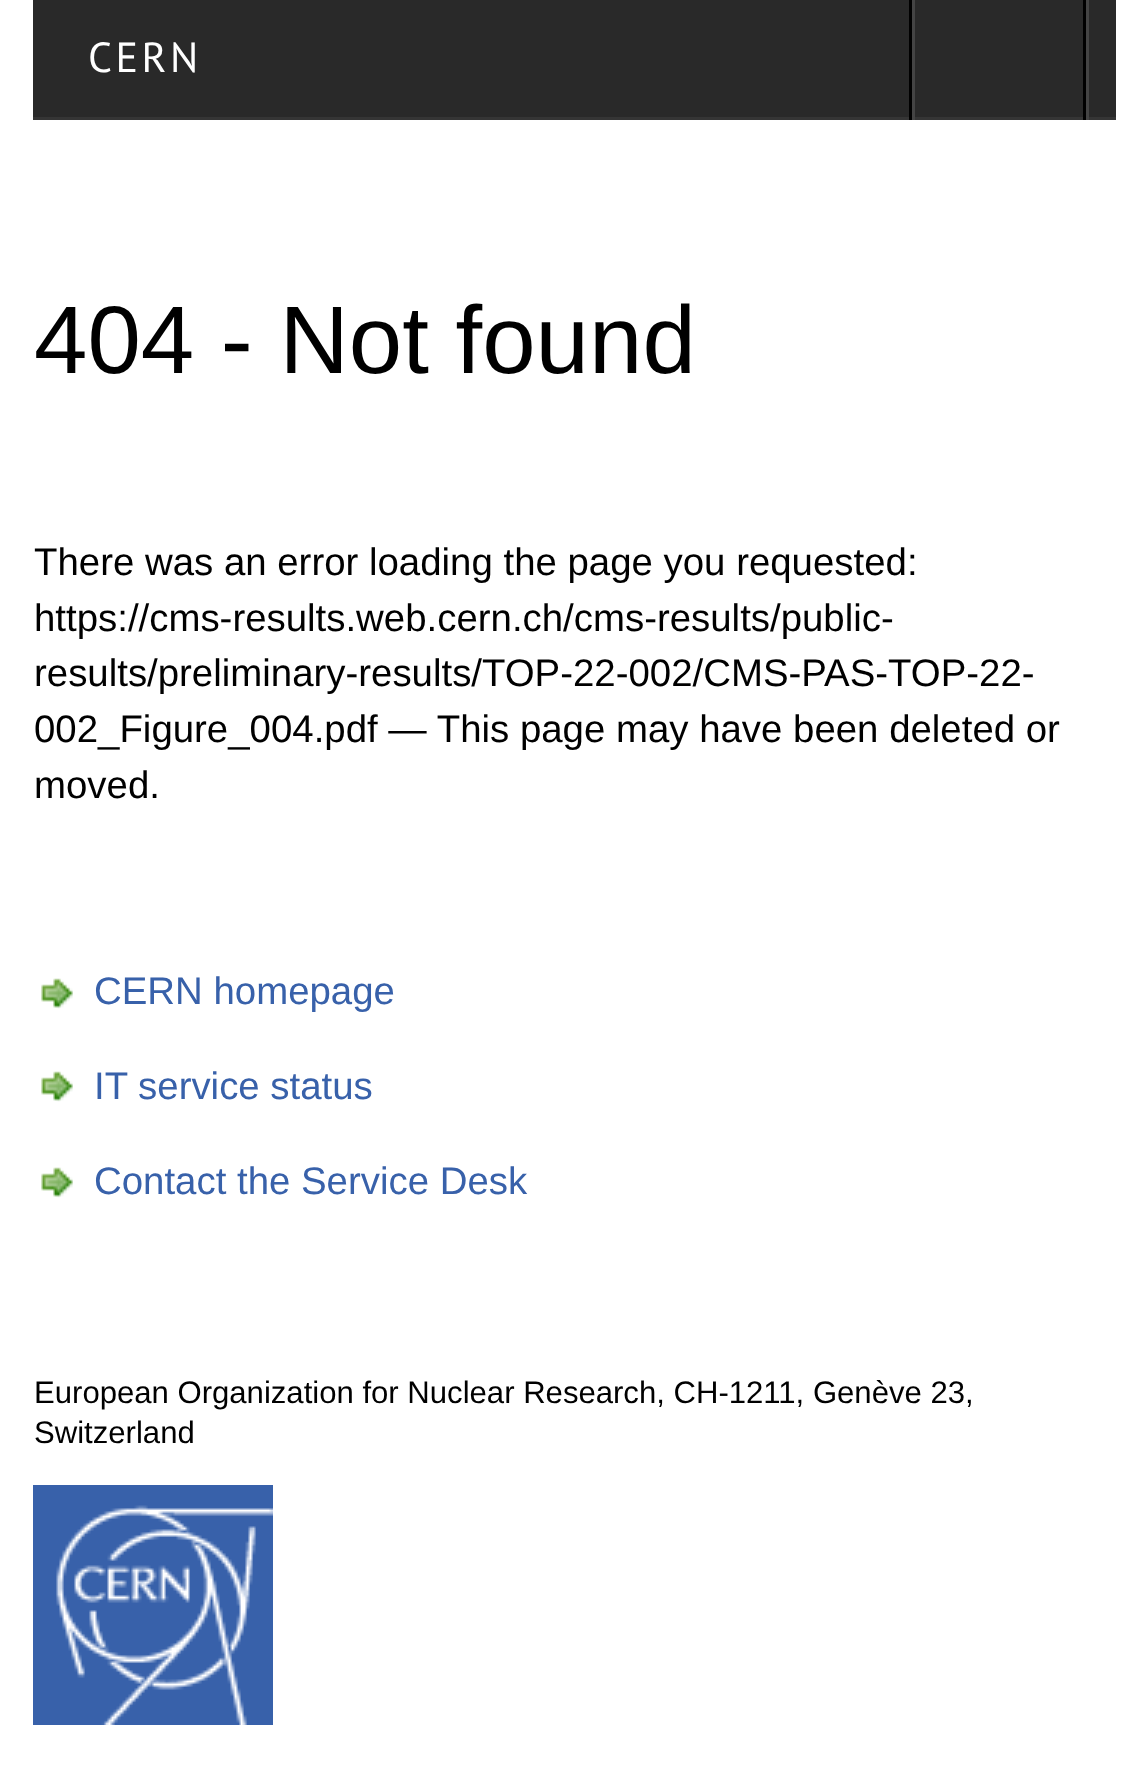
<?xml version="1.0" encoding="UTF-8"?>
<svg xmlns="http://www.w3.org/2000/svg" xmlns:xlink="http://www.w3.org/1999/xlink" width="1148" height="1786">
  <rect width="100%" height="100%" fill="#ffffff" />
  <rect x="33" width="1083" height="117" fill="#292929" />
  <rect x="33" y="117" width="1083" height="3" fill="#353535" />
  <rect x="1086" width="3" height="120" fill="#444444" />
  <rect x="1083" width="3" height="120" fill="#000000" />
  <rect x="909" width="3" height="120" fill="#000000" />
  <rect x="912" width="3" height="120" fill="#444444" />
  <image x="41" y="978" width="32" height="31" xlink:href="image1.png" />
  <image x="41" y="1071" width="32" height="31" xlink:href="image1.png" />
  <image x="41" y="1167" width="32" height="31" xlink:href="image1.png" />
  <image x="33" y="1485" width="240" height="240" xlink:href="image2.png" />
  <text x="88" y="72" style="font-family: PT Sans; font-size: 42px; letter-spacing: 3.5px; fill: #ffffff">CERN</text>
  <text x="34" y="373" style="font-family: Liberation Sans; font-size: 96px; fill: #000000">404 - Not found</text>
  <text x="34" y="575" style="font-family: Liberation Sans; font-size: 38.4px; fill: #000000">There was an error loading the page you requested:</text>
  <text x="34" y="631" style="font-family: Liberation Sans; font-size: 38.4px; fill: #000000">https://cms-results.web.cern.ch/cms-results/public-</text>
  <text x="34" y="686" style="font-family: Liberation Sans; font-size: 38.4px; fill: #000000">results/preliminary-results/TOP-22-002/CMS-PAS-TOP-22-</text>
  <text x="34" y="742" style="font-family: Liberation Sans; font-size: 38.4px; fill: #000000">002_Figure_004.pdf — This page may have been deleted or</text>
  <text x="34" y="798" style="font-family: Liberation Sans; font-size: 38.4px; fill: #000000">moved.</text>
  <text x="94" y="1004" style="font-family: Liberation Sans; font-size: 38.4px; fill: #3861aa">CERN homepage</text>
  <text x="94" y="1099" style="font-family: Liberation Sans; font-size: 38.4px; fill: #3861aa">IT service status</text>
  <text x="94" y="1194" style="font-family: Liberation Sans; font-size: 38.4px; fill: #3861aa">Contact the Service Desk</text>
  <text x="34" y="1403" style="font-family: Liberation Sans; font-size: 31.1px; fill: #000000">European Organization for Nuclear Research, CH-1211, Genève 23,</text>
  <text x="34" y="1443" style="font-family: Liberation Sans; font-size: 31.1px; fill: #000000">Switzerland</text>
</svg>
